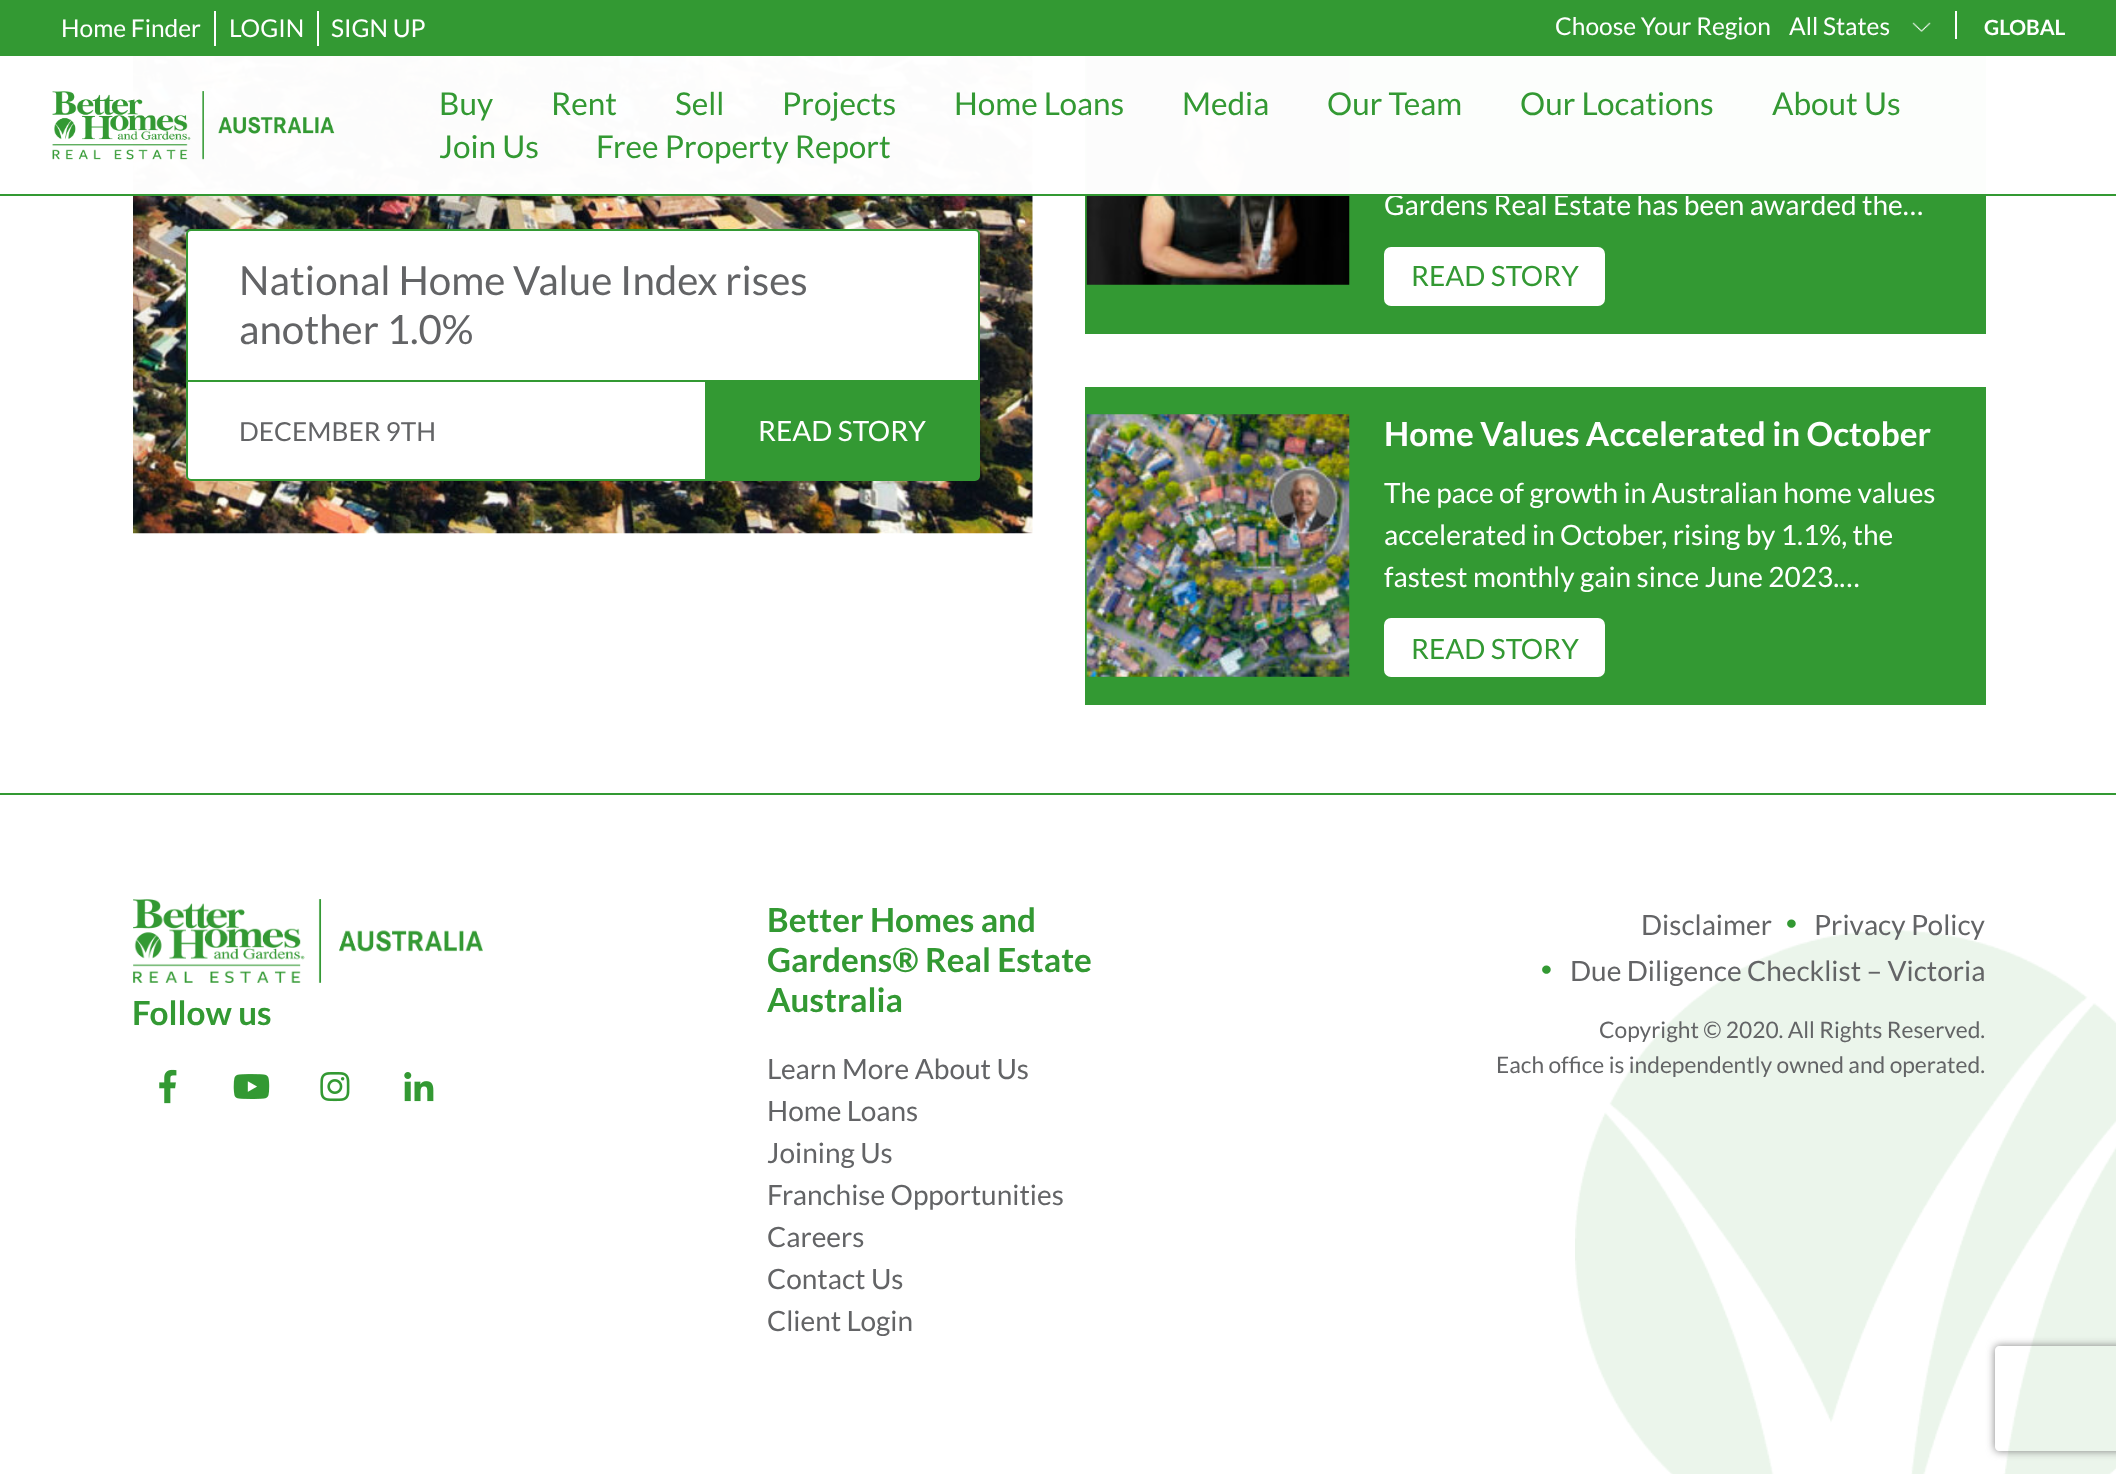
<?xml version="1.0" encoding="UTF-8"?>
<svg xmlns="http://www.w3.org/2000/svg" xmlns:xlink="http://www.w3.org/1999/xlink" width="2116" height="1474">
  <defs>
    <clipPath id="clip1"><path d="M 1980 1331 h 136 v 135 h -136 z m 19 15 h 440 c 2 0 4 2 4 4 v 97 c 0 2 -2 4 -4 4 h -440 c -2 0 -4 -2 -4 -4 v -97 c 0 -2 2 -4 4 -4 z" clip-rule="evenodd" /></clipPath>
  </defs>
  <rect width="100%" height="100%" fill="#ffffff" />
  <image x="133" y="56" width="900" height="478" xlink:href="image3.png" />
  <rect x="1085" y="56" width="901" height="278" fill="#339933" />
  <image x="1086" y="56" width="264" height="229" xlink:href="image4.png" />
  <rect x="133" y="56" width="1853" height="138" fill="#ffffff" fill-opacity="0.99" />
  <rect width="2116" height="56" fill="#339933" />
  <rect x="214" y="11" width="2" height="35" fill="#ffffff" />
  <rect x="317" y="11" width="2" height="35" fill="#ffffff" />
  <image x="1912" y="22" width="19" height="10" xlink:href="image1.png" />
  <rect x="1955" y="11" width="2" height="28" fill="#ffffff" />
  <image x="52" y="91" width="283" height="69" xlink:href="image2.png" />
  <rect x="187" y="230" width="792" height="250" rx="4" fill="#ffffff" stroke="#339933" stroke-width="2" />
  <rect x="187" y="380" width="791" height="2" fill="#339933" />
  <rect x="705" y="382" width="273" height="97" fill="#339933" />
  <rect x="1384" y="247" width="221" height="59" rx="7" fill="#ffffff" />
  <rect x="1085" y="387" width="901" height="318" fill="#339933" />
  <image x="1086" y="414" width="264" height="263" xlink:href="image5.png" />
  <rect x="1384" y="618" width="221" height="59" rx="7" fill="#ffffff" />
  <image x="1575" y="930" width="541" height="544" xlink:href="image6.png" />
  <rect y="793" width="2116" height="2" fill="#339933" />
  <image x="133" y="899" width="350" height="84" xlink:href="image7.png" />
  <image x="159" y="1069" width="18" height="35" xlink:href="image8.png" />
  <image x="233" y="1074" width="37" height="25" xlink:href="image9.png" />
  <image x="320" y="1072" width="30" height="30" xlink:href="image10.png" />
  <image x="404" y="1072" width="30" height="30" xlink:href="image11.png" />
  <g clip-path="url(#clip1)">
    <rect x="1995" y="1346" width="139" height="105" rx="4" fill="#808080" filter="blur(4.5px)" />
  </g>
  <text x="61" y="37" style="font-family: Lato; font-size: 24.5px; fill: #ffffff">Home Finder</text>
  <text x="229" y="37" style="font-family: Lato; font-size: 24.5px; fill: #ffffff">LOGIN</text>
  <text x="331" y="37" style="font-family: Lato; font-size: 24.5px; fill: #ffffff">SIGN UP</text>
  <text x="1555" y="35" style="font-family: Lato; font-size: 24.5px; fill: #ffffff">Choose Your Region</text>
  <text x="1789" y="35" style="font-family: Lato; font-size: 24.5px; fill: #ffffff">All States</text>
  <text x="1984" y="35" style="font-family: Lato; font-size: 21px; font-weight: bold; fill: #ffffff">GLOBAL</text>
  <text x="439" y="115" style="font-family: Lato; font-size: 31.5px; fill: #339933">Buy</text>
  <text x="551" y="115" style="font-family: Lato; font-size: 31.5px; fill: #339933">Rent</text>
  <text x="675" y="115" style="font-family: Lato; font-size: 31.5px; fill: #339933">Sell</text>
  <text x="782" y="115" style="font-family: Lato; font-size: 31.5px; fill: #339933">Projects</text>
  <text x="954" y="115" style="font-family: Lato; font-size: 31.5px; fill: #339933">Home Loans</text>
  <text x="1182" y="115" style="font-family: Lato; font-size: 31.5px; fill: #339933">Media</text>
  <text x="1327" y="115" style="font-family: Lato; font-size: 31.5px; fill: #339933">Our Team</text>
  <text x="1520" y="115" style="font-family: Lato; font-size: 31.5px; fill: #339933">Our Locations</text>
  <text x="1772" y="115" style="font-family: Lato; font-size: 31.5px; fill: #339933">About Us</text>
  <text x="439" y="158" style="font-family: Lato; font-size: 31.5px; fill: #339933">Join Us</text>
  <text x="596" y="158" style="font-family: Lato; font-size: 31.5px; fill: #339933">Free Property Report</text>
  <text x="239" y="295" style="font-family: Lato; font-size: 40.25px; fill: #636466">National Home Value Index rises</text>
  <text x="239" y="344" style="font-family: Lato; font-size: 40.25px; fill: #636466">another 1.0%</text>
  <text x="239" y="441" style="font-family: Lato; font-size: 26.25px; fill: #636466">DECEMBER 9TH</text>
  <text x="758" y="441" style="font-family: Lato; font-size: 28px; fill: #ffffff">READ STORY</text>
  <text x="1384" y="215" style="font-family: Lato; font-size: 28px; fill: #ffffff">Gardens Real Estate has been awarded the…</text>
  <rect y="194" width="2116" height="2" fill="#339933" />
  <text x="1411" y="286" style="font-family: Lato; font-size: 28px; fill: #339933">READ STORY</text>
  <text x="1384" y="446" style="font-family: Lato; font-size: 33.25px; font-weight: bold; fill: #ffffff">Home Values Accelerated in October</text>
  <text x="1384" y="503" style="font-family: Lato; font-size: 28px; fill: #ffffff">The pace of growth in Australian home values</text>
  <text x="1384" y="545" style="font-family: Lato; font-size: 28px; fill: #ffffff">accelerated in October, rising by 1.1%, the</text>
  <text x="1384" y="587" style="font-family: Lato; font-size: 28px; fill: #ffffff">fastest monthly gain since June 2023.…</text>
  <text x="1411" y="659" style="font-family: Lato; font-size: 28px; fill: #339933">READ STORY</text>
  <text x="132" y="1025" style="font-family: Lato; font-size: 33.25px; font-weight: bold; fill: #339933">Follow us</text>
  <text x="767" y="932" style="font-family: Lato; font-size: 33.25px; font-weight: bold; fill: #339933">Better Homes and</text>
  <text x="767" y="972" style="font-family: Lato; font-size: 33.25px; font-weight: bold; fill: #339933">Gardens® Real Estate</text>
  <text x="767" y="1012" style="font-family: Lato; font-size: 33.25px; font-weight: bold; fill: #339933">Australia</text>
  <text x="767" y="1079" style="font-family: Lato; font-size: 28px; fill: #636466">Learn More About Us</text>
  <text x="767" y="1121" style="font-family: Lato; font-size: 28px; fill: #636466">Home Loans</text>
  <text x="767" y="1163" style="font-family: Lato; font-size: 28px; fill: #636466">Joining Us</text>
  <text x="767" y="1205" style="font-family: Lato; font-size: 28px; fill: #636466">Franchise Opportunities</text>
  <text x="767" y="1247" style="font-family: Lato; font-size: 28px; fill: #636466">Careers</text>
  <text x="767" y="1289" style="font-family: Lato; font-size: 28px; fill: #636466">Contact Us</text>
  <text x="767" y="1331" style="font-family: Lato; font-size: 28px; fill: #636466">Client Login</text>
  <text x="1641" y="935" style="font-family: Lato; font-size: 28px; fill: #636466">Disclaimer</text>
  <text x="1786" y="935" style="font-family: Lato; font-size: 38px; font-weight: 900; fill: #339933">·</text>
  <text x="1814" y="935" style="font-family: Lato; font-size: 28px; fill: #636466">Privacy Policy</text>
  <text x="1541" y="981" style="font-family: Lato; font-size: 38px; font-weight: 900; fill: #339933">·</text>
  <text x="1570" y="981" style="font-family: Lato; font-size: 28px; fill: #636466">Due Diligence Checklist – Victoria</text>
  <text x="1599" y="1038" style="font-family: Lato; font-size: 22.75px; fill: #636466">Copyright © 2020. All Rights Reserved.</text>
  <text x="1496" y="1073" style="font-family: Lato; font-size: 22.75px; fill: #636466">Each office is independently owned and operated.</text>
</svg>
